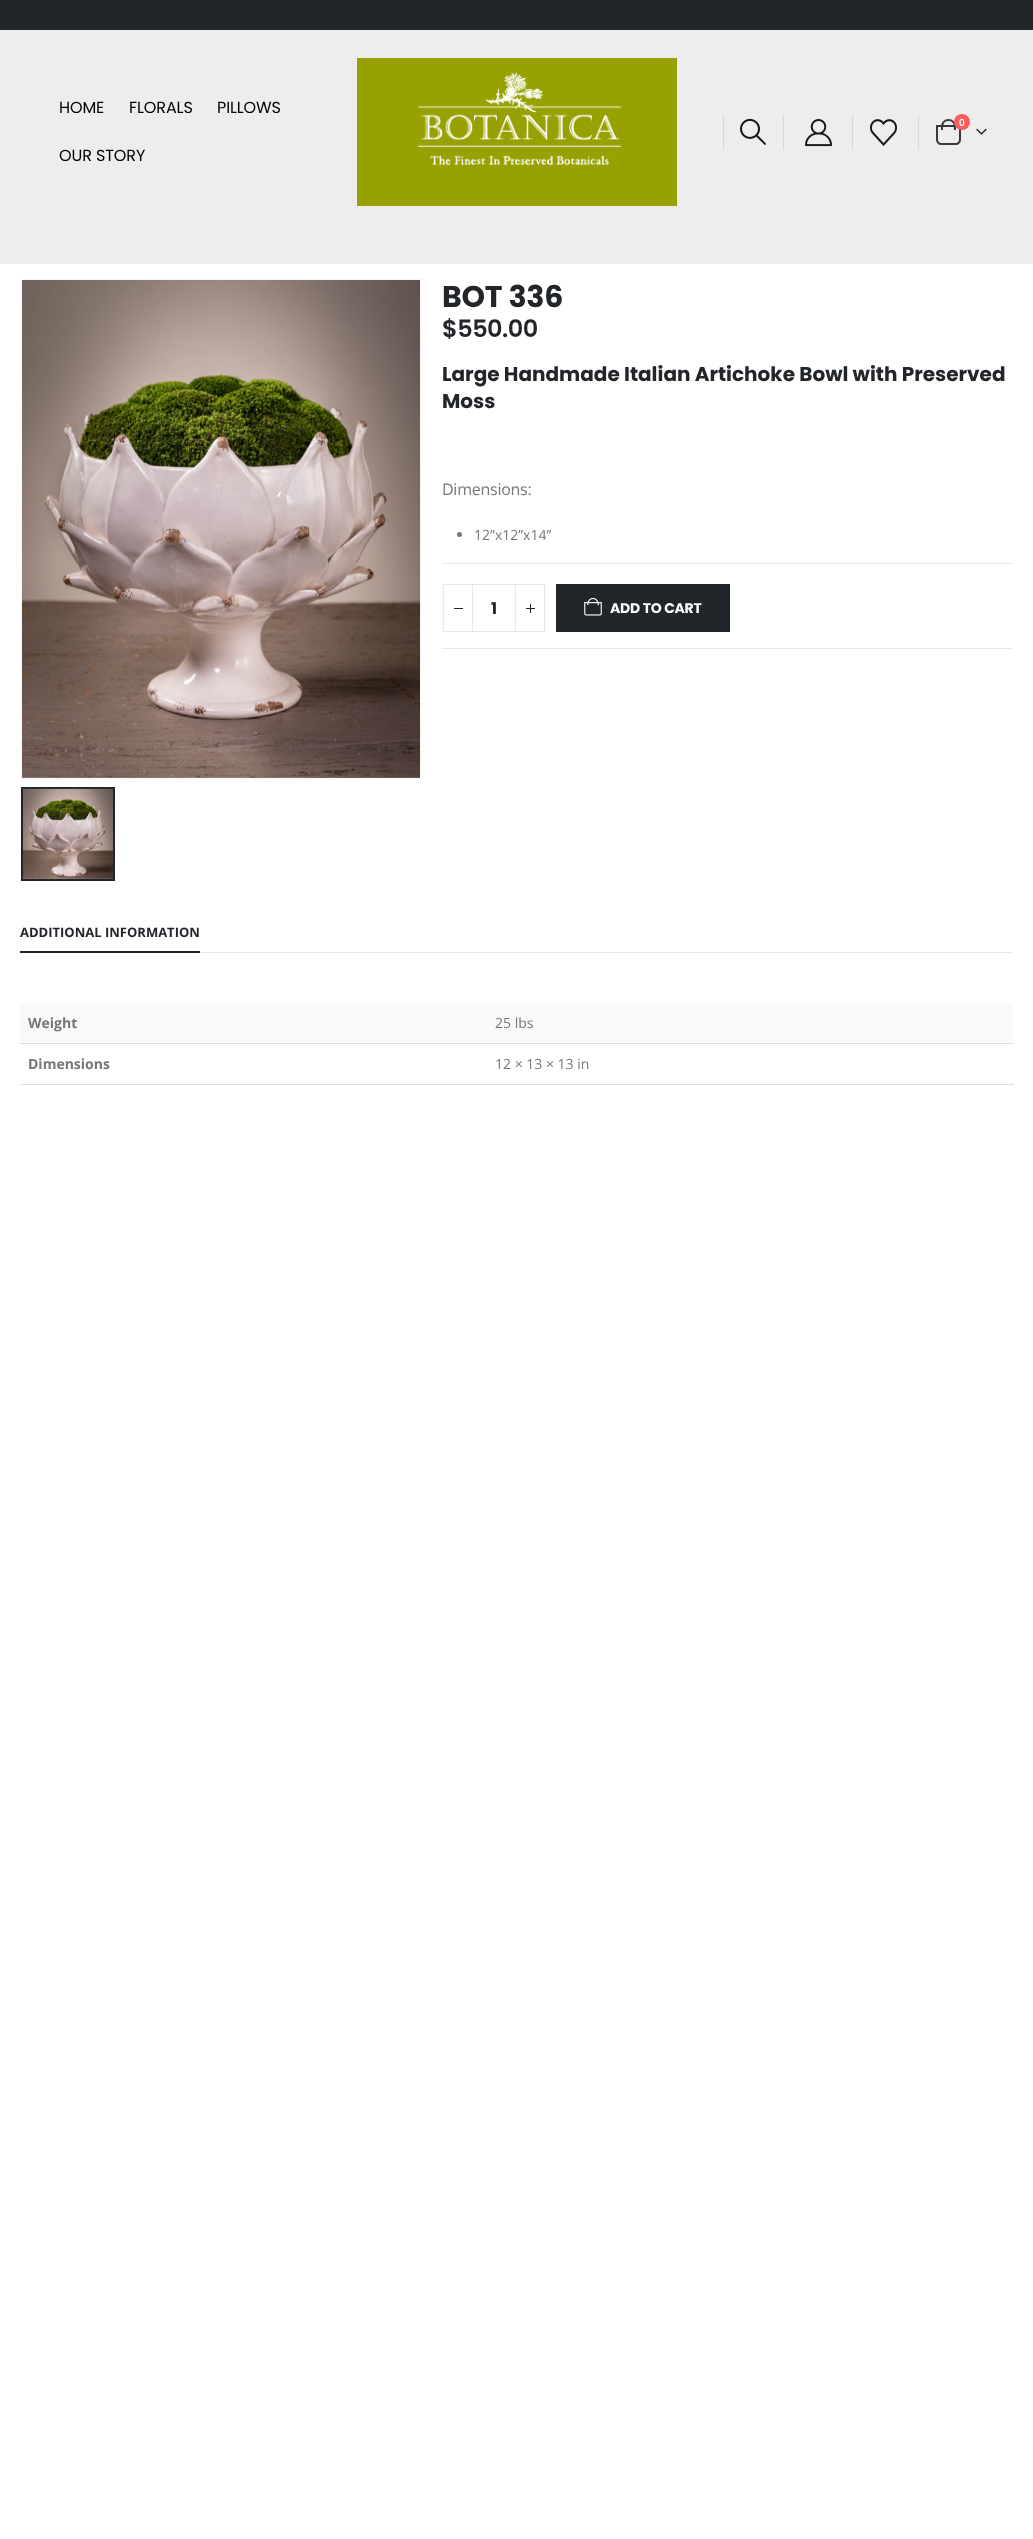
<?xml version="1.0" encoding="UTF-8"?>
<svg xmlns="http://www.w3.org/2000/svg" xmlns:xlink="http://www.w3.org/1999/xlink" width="1033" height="2539">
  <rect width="100%" height="100%" fill="#ffffff" />
  <rect y="30" width="1033" height="234" fill="#ededed" />
  <rect width="1033" height="30" fill="#222529" />
  <image x="357" y="58" width="320" height="148" xlink:href="image1.png" />
  <rect x="723" y="115" width="1" height="35" fill="#d8d8d8" />
  <image x="740" y="118" width="26" height="27" xlink:href="image2.png" />
  <rect x="783" y="115" width="1" height="35" fill="#d8d8d8" />
  <image x="805" y="119" width="27" height="28" xlink:href="image3.png" />
  <rect x="852" y="115" width="1" height="35" fill="#d8d8d8" />
  <image x="870" y="119" width="27" height="27" xlink:href="image4.png" />
  <rect x="918" y="115" width="1" height="35" fill="#d8d8d8" />
  <path d="M 937 126 h 23 v 14 c 0 2 -2 4 -4 4 h -15 c -2 0 -4 -2 -4 -4 z" fill="none" stroke="#36393d" stroke-width="2" />
  <path d="M 948.5 119 c 4 0 7.5 3.5 7.5 7.5 v 3.5 h -15 v -3.5 c 0 -4 3.5 -7.5 7.5 -7.5 z m 0 2 c 5.5 0 5.5 5 5.5 9 h -11 c 0 -4 0 -9 5.5 -9 z" fill="#36393d" fill-rule="evenodd" />
  <circle cx="962" cy="122" r="8" fill="#ff5b5b" />
  <image x="976" y="128" width="11" height="7" xlink:href="image5.png" />
  <rect x="21.5" y="279.5" width="399" height="499" fill="none" stroke="#f4f4f4" />
  <image x="22" y="280" width="398" height="498" xlink:href="image6.png" />
  <rect x="22" y="788" width="92" height="92" fill="none" stroke="#222529" stroke-width="2" />
  <image x="23" y="788" width="90" height="91" xlink:href="image7.png" />
  <circle cx="459.5" cy="534.5" r="2.5" fill="#777777" />
  <rect x="442" y="563" width="571" height="1" fill="#e7e7e7" />
  <rect x="442" y="648" width="571" height="1" fill="#e7e7e7" />
  <rect x="472" y="584" width="44" height="1" fill="#e7e7e7" />
  <rect x="472" y="631" width="44" height="1" fill="#e7e7e7" />
  <rect x="443.5" y="584.5" width="29" height="47" fill="none" stroke="#e7e7e7" />
  <rect x="454" y="608" width="9" height="1" fill="#222529" />
  <rect x="515.5" y="584.5" width="29" height="47" fill="none" stroke="#e7e7e7" />
  <rect x="526" y="608" width="9" height="1" fill="#222529" />
  <rect x="530" y="604" width="1" height="9" fill="#222529" />
  <rect x="556" y="584" width="174" height="48" fill="#222529" />
  <image x="584" y="597" width="18" height="19" xlink:href="image8.png" />
  <rect x="20" y="951" width="180" height="2" fill="#222529" />
  <rect x="200" y="952" width="813" height="1" fill="#e7e7e7" />
  <rect x="20" y="1003" width="993" height="39" fill="#f9f9f9" />
  <rect x="20" y="1043" width="994" height="1" fill="#dddddd" />
  <rect x="20" y="1084" width="994" height="1" fill="#dddddd" />
  <text x="59" y="113" style="font-family: Poppins; font-size: 16px; letter-spacing: -0.1px; fill: #000000">HOME</text>
  <text x="129" y="113" style="font-family: Poppins; font-size: 16px; letter-spacing: -0.1px; fill: #000000">FLORALS</text>
  <text x="217" y="113" style="font-family: Poppins; font-size: 16px; letter-spacing: -0.1px; fill: #000000">PILLOWS</text>
  <text x="59" y="161" style="font-family: Poppins; font-size: 16px; letter-spacing: -0.1px; fill: #000000">OUR STORY</text>
  <text x="959" y="126" style="font-family: Open Sans; font-size: 10px; font-weight: 600; fill: #ffffff">0</text>
  <text x="442" y="307" style="font-family: Poppins; font-size: 30px; font-weight: bold; letter-spacing: -0.25px; fill: #222529">BOT 336</text>
  <text x="442" y="337" style="font-family: Poppins; font-size: 24px; font-weight: 600; letter-spacing: -0.5px; fill: #222529">$550.00</text>
  <text x="442" y="381" style="font-family: Poppins; font-size: 20px; font-weight: bold; fill: #222529">Large Handmade Italian Artichoke Bowl with Preserved</text>
  <text x="442" y="408" style="font-family: Poppins; font-size: 20px; font-weight: bold; fill: #222529">Moss</text>
  <text x="442" y="495" style="font-family: Open Sans; font-size: 16px; letter-spacing: -0.25px; fill: #777777">Dimensions:</text>
  <text x="474" y="540" style="font-family: Open Sans; font-size: 14px; fill: #777777">12”x12”x14”</text>
  <text x="491" y="614" style="font-family: Poppins; font-size: 16px; font-weight: bold; fill: #222529">1</text>
  <text x="610" y="613" style="font-family: Poppins; font-size: 14px; font-weight: bold; letter-spacing: -0.25px; fill: #ffffff">ADD TO CART</text>
  <text x="20" y="937" style="font-family: Open Sans; font-size: 13px; font-weight: bold; fill: #222529">ADDITIONAL INFORMATION</text>
  <text x="28" y="1028" style="font-family: Open Sans; font-size: 14px; font-weight: bold; fill: #777777">Weight</text>
  <text x="495" y="1028" style="font-family: Open Sans; font-size: 14px; fill: #777777">25 lbs</text>
  <text x="28" y="1069" style="font-family: Open Sans; font-size: 14px; font-weight: bold; fill: #777777">Dimensions</text>
  <text x="495" y="1069" style="font-family: Open Sans; font-size: 14px; fill: #777777">12 × 13 × 13 in</text>
</svg>
